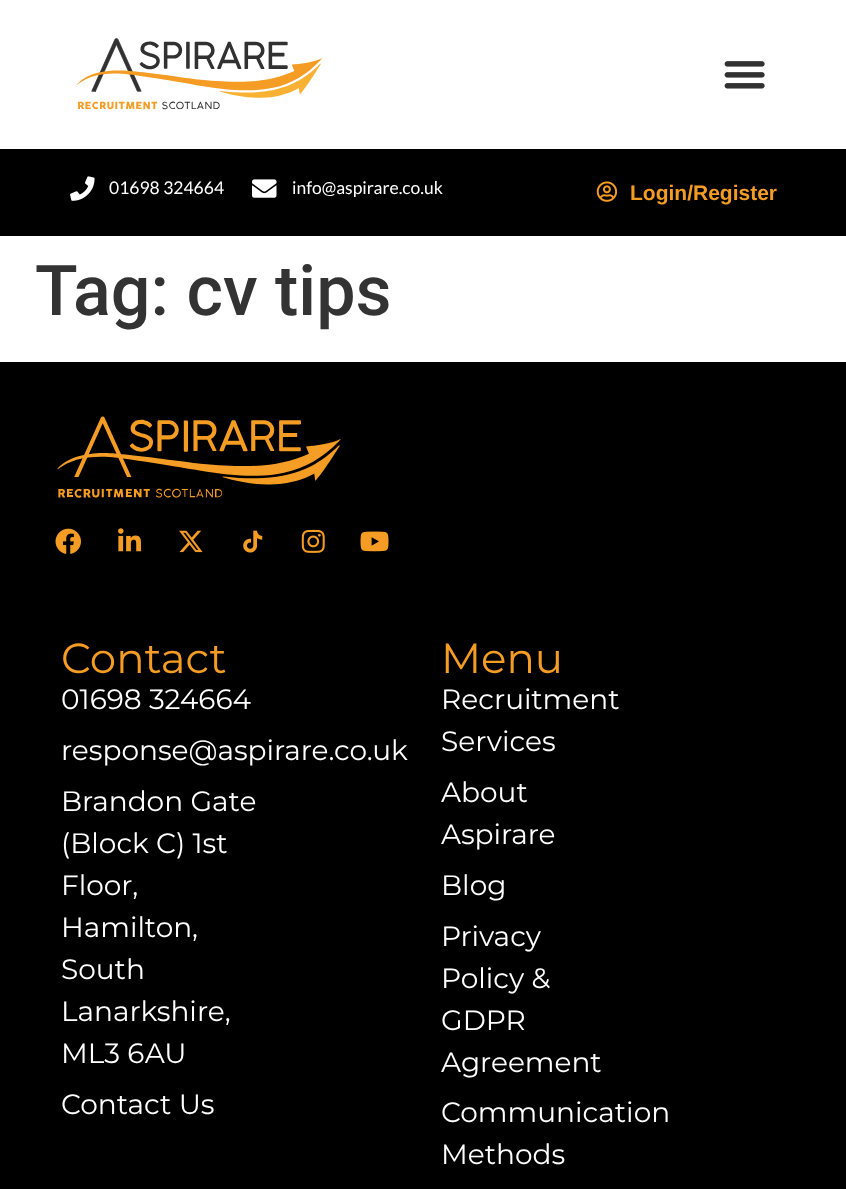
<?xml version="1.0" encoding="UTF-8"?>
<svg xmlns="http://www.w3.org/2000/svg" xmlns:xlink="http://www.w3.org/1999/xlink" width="846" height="1189">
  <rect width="100%" height="100%" fill="#ffffff" />
  <image x="77" y="37" width="245" height="73" xlink:href="image1.png" />
  <image x="724" y="61" width="41" height="28" xlink:href="image2.png" />
  <rect y="149" width="846" height="87" fill="#000000" />
  <image x="70" y="176" width="25" height="25" xlink:href="image3.png" />
  <image x="252" y="179" width="25" height="19" xlink:href="image4.png" />
  <image x="596" y="181" width="22" height="21" xlink:href="image5.png" />
  <rect y="362" width="846" height="827" fill="#000000" />
  <image x="57" y="416" width="284" height="82" xlink:href="image6.png" />
  <image x="55" y="528" width="26" height="26" xlink:href="image7.png" />
  <image x="118" y="528" width="23" height="24" xlink:href="image8.png" />
  <image x="179" y="530" width="24" height="23" xlink:href="image9.png" />
  <image x="243" y="530" width="20" height="23" xlink:href="image10.png" />
  <image x="301" y="529" width="24" height="24" xlink:href="image11.png" />
  <image x="360" y="531" width="29" height="21" xlink:href="image12.png" />
  <text x="109" y="194" style="font-family: Lato; font-size: 17.5px; fill: #ffffff">01698 324664</text>
  <text x="292" y="194" style="font-family: Lato; font-size: 17.5px; fill: #ffffff">info@aspirare.co.uk</text>
  <text x="630" y="200" style="font-family: Liberation Sans; font-size: 21px; font-weight: bold; fill: #f49c24">Login/Register</text>
  <text x="35" y="315" style="font-family: Roboto; font-size: 70px; font-weight: 500; fill: #333333">Tag: cv tips</text>
  <text x="61" y="673" style="font-family: Montserrat; font-size: 42px; fill: #f49c24">Contact</text>
  <text x="61" y="709" style="font-family: Montserrat; font-size: 28px; fill: #ffffff">01698 324664</text>
  <text x="61" y="760" style="font-family: Montserrat; font-size: 28px; fill: #ffffff">response@aspirare.co.uk</text>
  <text x="61" y="811" style="font-family: Montserrat; font-size: 28px; fill: #ffffff">Brandon Gate</text>
  <text x="61" y="853" style="font-family: Montserrat; font-size: 28px; fill: #ffffff">(Block C) 1st</text>
  <text x="61" y="895" style="font-family: Montserrat; font-size: 28px; fill: #ffffff">Floor,</text>
  <text x="61" y="937" style="font-family: Montserrat; font-size: 28px; fill: #ffffff">Hamilton,</text>
  <text x="61" y="979" style="font-family: Montserrat; font-size: 28px; fill: #ffffff">South</text>
  <text x="61" y="1021" style="font-family: Montserrat; font-size: 28px; fill: #ffffff">Lanarkshire,</text>
  <text x="61" y="1063" style="font-family: Montserrat; font-size: 28px; fill: #ffffff">ML3 6AU</text>
  <text x="61" y="1114" style="font-family: Montserrat; font-size: 28px; fill: #ffffff">Contact Us</text>
  <text x="441" y="673" style="font-family: Montserrat; font-size: 42px; fill: #f49c24">Menu</text>
  <text x="441" y="709" style="font-family: Montserrat; font-size: 28px; fill: #ffffff">Recruitment</text>
  <text x="441" y="751" style="font-family: Montserrat; font-size: 28px; fill: #ffffff">Services</text>
  <text x="441" y="802" style="font-family: Montserrat; font-size: 28px; fill: #ffffff">About</text>
  <text x="441" y="844" style="font-family: Montserrat; font-size: 28px; fill: #ffffff">Aspirare</text>
  <text x="441" y="895" style="font-family: Montserrat; font-size: 28px; fill: #ffffff">Blog</text>
  <text x="441" y="946" style="font-family: Montserrat; font-size: 28px; fill: #ffffff">Privacy</text>
  <text x="441" y="988" style="font-family: Montserrat; font-size: 28px; fill: #ffffff">Policy &amp;</text>
  <text x="441" y="1030" style="font-family: Montserrat; font-size: 28px; fill: #ffffff">GDPR</text>
  <text x="441" y="1072" style="font-family: Montserrat; font-size: 28px; fill: #ffffff">Agreement</text>
  <text x="441" y="1122" style="font-family: Montserrat; font-size: 28px; fill: #ffffff">Communication</text>
  <text x="441" y="1164" style="font-family: Montserrat; font-size: 28px; fill: #ffffff">Methods</text>
</svg>
